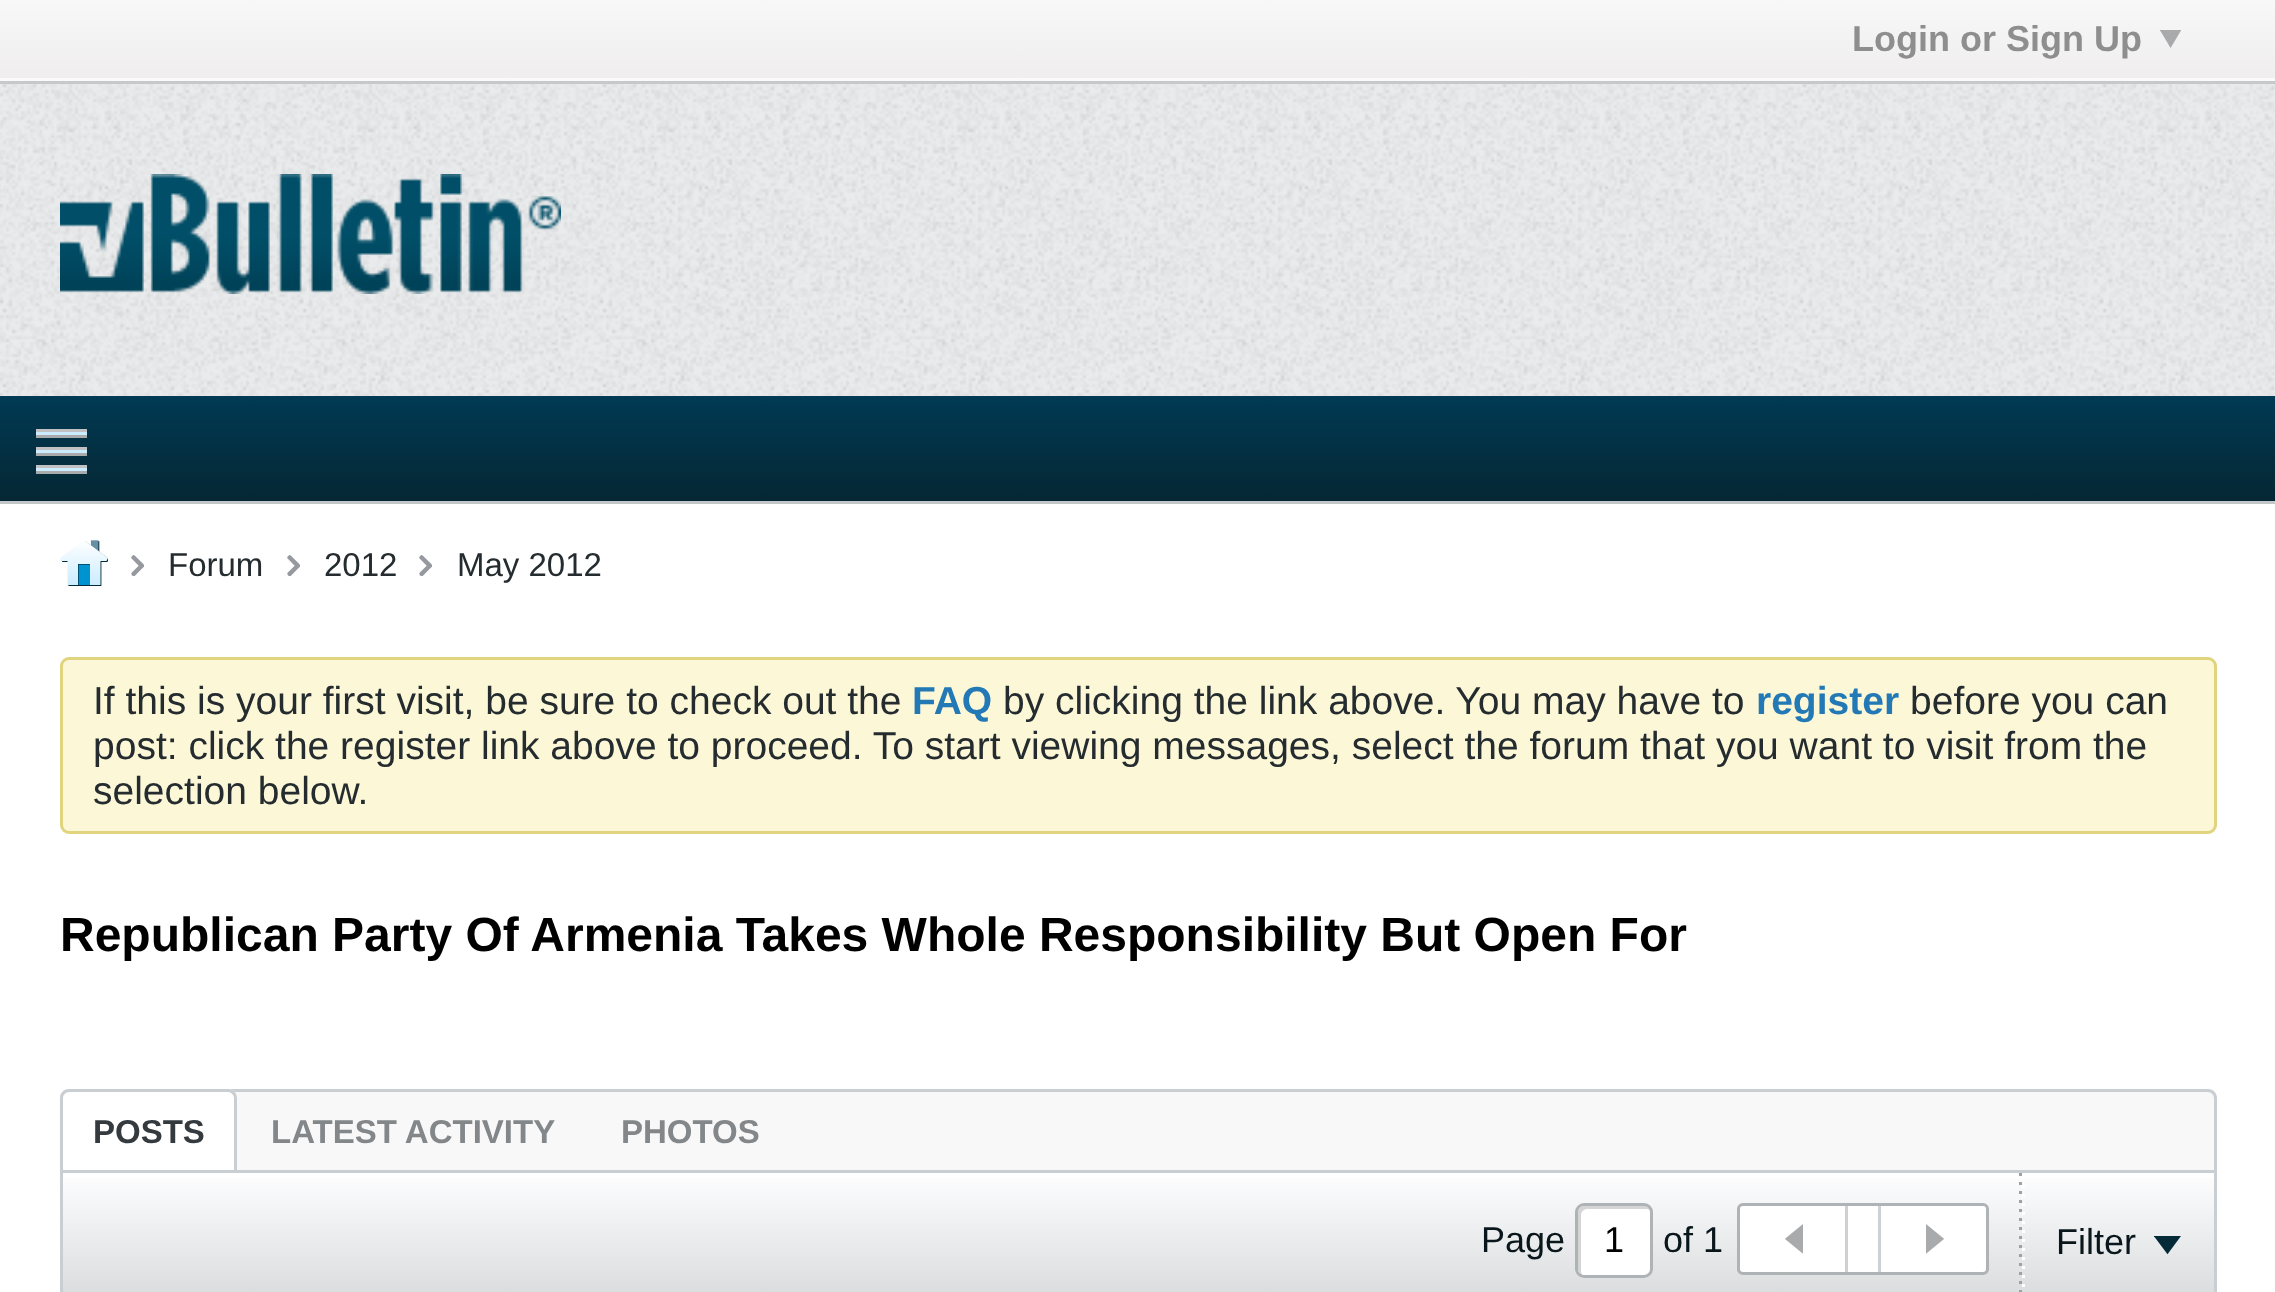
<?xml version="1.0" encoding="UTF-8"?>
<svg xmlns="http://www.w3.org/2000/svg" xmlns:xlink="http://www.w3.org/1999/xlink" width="2275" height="1292">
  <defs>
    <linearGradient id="g1" gradientUnits="userSpaceOnUse" x1="1139" y1="0" x2="1139" y2="84"><stop offset="0" stop-color="#f8f8f8" /><stop offset="1" stop-color="#efedee" /></linearGradient>
    <linearGradient id="g2" gradientUnits="userSpaceOnUse" x1="1139" y1="396" x2="1139" y2="501"><stop offset="0" stop-color="#013a54" /><stop offset="1" stop-color="#052733" /></linearGradient>
    <linearGradient id="g3" gradientUnits="userSpaceOnUse" x1="1139" y1="1173" x2="1139" y2="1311"><stop offset="0" stop-color="#fefeff" /><stop offset="1" stop-color="#d5d8da" /></linearGradient>
  </defs>
  <rect width="100%" height="100%" fill="#eaebec" />
  <rect width="2275" height="78" fill="url(#g1)" />
  <image x="2160" y="30" width="21" height="18" xlink:href="image1.png" />
  <rect y="78" width="2275" height="3" fill="#fafafa" />
  <rect y="81" width="2275" height="3" fill="#c7c8c9" />
  <image x="0" y="84" width="2275" height="312" xlink:href="image2.png" />
  <image x="60" y="174" width="501" height="120" xlink:href="image3.png" />
  <rect y="396" width="2275" height="105" fill="url(#g2)" />
  <rect y="501" width="2275" height="3" fill="#c4c7c8" />
  <image x="36" y="429" width="51" height="45" xlink:href="image4.png" />
  <rect y="504" width="2275" height="788" fill="#ffffff" />
  <image x="60" y="540" width="48" height="46" xlink:href="image5.png" />
  <image x="131" y="555" width="13" height="21" xlink:href="image6.png" />
  <image x="287" y="555" width="13" height="21" xlink:href="image6.png" />
  <image x="419" y="555" width="13" height="21" xlink:href="image6.png" />
  <rect x="61.5" y="658.5" width="2154" height="174" rx="7.5" fill="#fcf7d7" stroke="#e1d47e" stroke-width="3" />
  <path d="M 69 1089 h 2139 c 5 0 9 4 9 9 v 72 h -2157 v -72 c 0 -5 4 -9 9 -9 z" fill="#f8f8f8" />
  <path d="M 69 1089 h 2139 c 5 0 9 4 9 9 v 72 h -2157 v -72 c 0 -5 4 -9 9 -9 z m 0 3 h 2139 c 3 0 6 3 6 6 v 72 h -2151 v -72 c 0 -3 3 -6 6 -6 z" fill="#c9ced2" fill-rule="evenodd" />
  <path d="M 69 1089 h 159 c 5 0 9 4 9 9 v 72 h -177 v -72 c 0 -5 4 -9 9 -9 z" fill="#ffffff" />
  <path d="M 69 1089 h 159 c 5 0 9 4 9 9 v 72 h -177 v -72 c 0 -5 4 -9 9 -9 z m 0 3 h 159 c 3 0 6 3 6 6 v 72 h -171 v -72 c 0 -3 3 -6 6 -6 z" fill="#c9ced2" fill-rule="evenodd" />
  <rect x="63" y="1178" width="2151" height="114" fill="url(#g3)" />
  <rect x="61.5" y="1171.5" width="2154" height="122" fill="none" stroke="#c9ced2" stroke-width="3" />
  <rect x="1575" y="1203" width="78" height="75" rx="9" fill="#ffffff" />
  <path d="M 1587 1209 h 60 l 3 1 c -1 -2 -4 -4 -6 -4 h -60 c -3 0 -6 3 -6 6 v 57 c 0 2 2 5 4 6 l -1 -3 v -57 c 0 -3 3 -6 6 -6 z" fill="#d5d5d5" />
  <rect x="1576.5" y="1204.5" width="75" height="72" rx="7.5" fill="none" stroke="#aeb3b6" stroke-width="3" />
  <rect x="1738.5" y="1204.5" width="249" height="69" rx="4.5" fill="#ffffff" stroke="#aeb3b6" stroke-width="3" />
  <rect x="1845" y="1206" width="3" height="66" fill="#cdd1d4" />
  <image x="1785" y="1224" width="18" height="30" xlink:href="image7.png" />
  <rect x="1878" y="1206" width="3" height="66" fill="#cdd1d4" />
  <image x="1926" y="1224" width="18" height="30" xlink:href="image8.png" />
  <rect x="2019" y="1173" width="3" height="3" fill="#9ba3a9" />
  <rect x="2019" y="1182" width="3" height="3" fill="#9ba3a9" />
  <rect x="2019" y="1191" width="3" height="3" fill="#9ba3a9" />
  <rect x="2019" y="1200" width="3" height="3" fill="#9ba3a9" />
  <rect x="2019" y="1209" width="3" height="3" fill="#9ba3a9" />
  <rect x="2019" y="1218" width="3" height="3" fill="#9ba3a9" />
  <rect x="2019" y="1227" width="3" height="3" fill="#9ba3a9" />
  <rect x="2019" y="1236" width="3" height="3" fill="#9ba3a9" />
  <rect x="2019" y="1245" width="3" height="3" fill="#9ba3a9" />
  <rect x="2019" y="1254" width="3" height="3" fill="#9ba3a9" />
  <rect x="2019" y="1263" width="3" height="3" fill="#9ba3a9" />
  <rect x="2019" y="1272" width="3" height="3" fill="#9ba3a9" />
  <rect x="2019" y="1281" width="3" height="3" fill="#9ba3a9" />
  <rect x="2019" y="1290" width="3" height="2" fill="#9ba3a9" />
  <rect x="2022" y="1178" width="3" height="1" fill="#ffffff" />
  <rect x="2022" y="1185" width="3" height="3" fill="#ffffff" />
  <rect x="2022" y="1194" width="3" height="3" fill="#ffffff" />
  <rect x="2022" y="1203" width="3" height="3" fill="#ffffff" />
  <rect x="2022" y="1212" width="3" height="3" fill="#ffffff" />
  <rect x="2022" y="1221" width="3" height="3" fill="#ffffff" />
  <rect x="2022" y="1230" width="3" height="3" fill="#ffffff" />
  <rect x="2022" y="1239" width="3" height="3" fill="#ffffff" />
  <rect x="2022" y="1248" width="3" height="3" fill="#ffffff" />
  <rect x="2022" y="1257" width="3" height="3" fill="#ffffff" />
  <rect x="2022" y="1266" width="3" height="3" fill="#ffffff" />
  <rect x="2022" y="1275" width="3" height="3" fill="#ffffff" />
  <rect x="2022" y="1284" width="3" height="3" fill="#ffffff" />
  <image x="2154" y="1236" width="27" height="19" xlink:href="image9.png" />
  <text x="1852" y="51" style="font-family: Liberation Sans; font-size: 36px; font-weight: bold; fill: #8e8e8e">Login or Sign Up</text>
  <text x="168" y="576" style="font-family: Liberation Sans; font-size: 33px; fill: #252c2f">Forum</text>
  <text x="324" y="576" style="font-family: Liberation Sans; font-size: 33px; fill: #252c2f">2012</text>
  <text x="457" y="576" style="font-family: Liberation Sans; font-size: 33px; fill: #252c2f">May 2012</text>
  <text x="93" y="714" style="font-family: Liberation Sans; font-size: 39px; fill: #252c2f">If this is your first visit, be sure to check out the</text>
  <text x="912" y="714" style="font-family: Liberation Sans; font-size: 39px; font-weight: bold; fill: #2379b5">FAQ</text>
  <text x="1003" y="714" style="font-family: Liberation Sans; font-size: 39px; fill: #252c2f">by clicking the link above. You may have to</text>
  <text x="1756" y="714" style="font-family: Liberation Sans; font-size: 39px; font-weight: bold; fill: #2379b5">register</text>
  <text x="1910" y="714" style="font-family: Liberation Sans; font-size: 39px; fill: #252c2f">before you can</text>
  <text x="93" y="759" style="font-family: Liberation Sans; font-size: 39px; fill: #252c2f">post: click the register link above to proceed. To start viewing messages, select the forum that you want to visit from the</text>
  <text x="93" y="804" style="font-family: Liberation Sans; font-size: 39px; fill: #252c2f">selection below.</text>
  <text x="60" y="951" style="font-family: Liberation Sans; font-size: 48px; font-weight: bold; fill: #000000">Republican Party Of Armenia Takes Whole Responsibility But Open For</text>
  <text x="93" y="1143" style="font-family: Liberation Sans; font-size: 33px; font-weight: bold; fill: #343a3d">POSTS</text>
  <text x="271" y="1143" style="font-family: Liberation Sans; font-size: 33px; font-weight: bold; fill: #838789">LATEST ACTIVITY</text>
  <text x="621" y="1143" style="font-family: Liberation Sans; font-size: 33px; font-weight: bold; fill: #838789">PHOTOS</text>
  <text x="1481" y="1252" style="font-family: Liberation Sans; font-size: 36px; fill: #09161b">Page</text>
  <text x="1604" y="1252" style="font-family: Liberation Sans; font-size: 36px; fill: #000000">1</text>
  <text x="1663" y="1252" style="font-family: Liberation Sans; font-size: 36px; fill: #09161b">of 1</text>
  <text x="2056" y="1254" style="font-family: Liberation Sans; font-size: 36px; fill: #09161b">Filter</text>
</svg>
